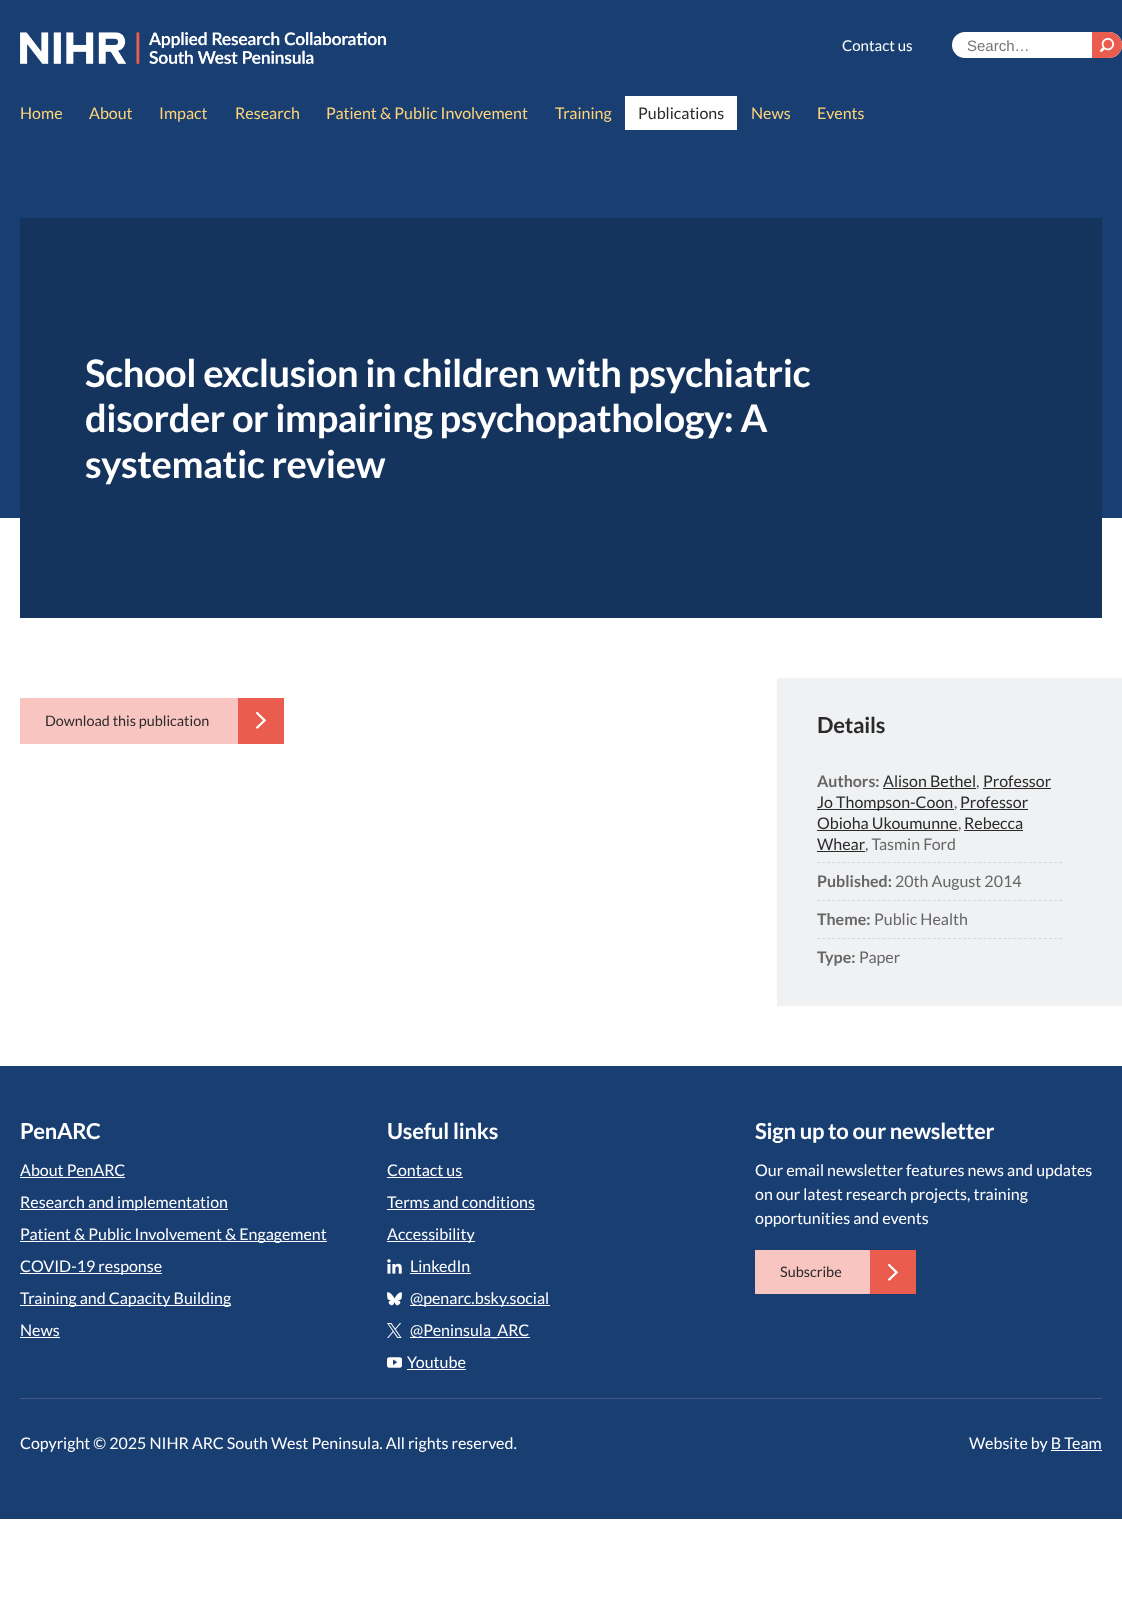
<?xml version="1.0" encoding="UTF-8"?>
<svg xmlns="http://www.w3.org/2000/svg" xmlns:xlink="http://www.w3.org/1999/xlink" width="1122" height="1620">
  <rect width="100%" height="100%" fill="#ffffff" />
  <rect width="1122" height="518" fill="#193e72" />
  <image x="20" y="32" width="366" height="32" xlink:href="image1.png" />
  <rect x="952" y="32" width="170" height="26" rx="13" fill="#ffffff" />
  <path d="M 1092 32 h 17 c 7 0 13 6 13 13 c 0 7 -6 13 -13 13 h -17 z" fill="#ea5d4e" />
  <image x="1100" y="38" width="14" height="14" xlink:href="image2.png" />
  <rect x="625" y="96" width="112" height="34" fill="#ffffff" />
  <rect x="20" y="218" width="1082" height="400" fill="#14335d" />
  <rect x="20" y="698" width="218" height="46" fill="#f8c5c0" />
  <rect x="238" y="698" width="46" height="46" fill="#ea5d4e" />
  <image x="256" y="712" width="10" height="17" xlink:href="image3.png" />
  <rect x="777" y="678" width="345" height="328" fill="#eff1f3" />
  <path d="M 817 862.5 h 245" fill="none" stroke="#d2d8dd" stroke-dasharray="3 2.04" />
  <rect x="883" y="788" width="93" height="1" fill="#2a2a2a" />
  <rect x="983" y="788" width="68" height="1" fill="#2a2a2a" />
  <rect x="817" y="809" width="137" height="1" fill="#2a2a2a" />
  <rect x="960" y="809" width="68" height="1" fill="#2a2a2a" />
  <rect x="817" y="830" width="141" height="1" fill="#2a2a2a" />
  <rect x="964" y="830" width="59" height="1" fill="#2a2a2a" />
  <rect x="817" y="851" width="48" height="1" fill="#2a2a2a" />
  <path d="M 817 900.5 h 245" fill="none" stroke="#d2d8dd" stroke-dasharray="3 2.04" />
  <path d="M 817 938.5 h 245" fill="none" stroke="#d2d8dd" stroke-dasharray="3 2.04" />
  <rect y="1066" width="1122" height="453" fill="#193e72" />
  <rect x="20" y="1177" width="105" height="1" fill="#ffffff" />
  <rect x="20" y="1209" width="208" height="1" fill="#ffffff" />
  <rect x="20" y="1241" width="307" height="1" fill="#ffffff" />
  <rect x="20" y="1273" width="142" height="1" fill="#ffffff" />
  <rect x="20" y="1305" width="211" height="1" fill="#ffffff" />
  <rect x="20" y="1337" width="40" height="1" fill="#ffffff" />
  <rect x="387" y="1177" width="76" height="1" fill="#ffffff" />
  <rect x="387" y="1209" width="148" height="1" fill="#ffffff" />
  <rect x="387" y="1241" width="88" height="1" fill="#ffffff" />
  <image x="387" y="1259" width="15" height="15" xlink:href="image4.png" />
  <rect x="410" y="1273" width="61" height="1" fill="#ffffff" />
  <image x="387" y="1292" width="15" height="14" xlink:href="image5.png" />
  <rect x="410" y="1305" width="140" height="1" fill="#ffffff" />
  <image x="387" y="1323" width="15" height="15" xlink:href="image6.png" />
  <rect x="410" y="1337" width="120" height="1" fill="#ffffff" />
  <image x="387" y="1357" width="15" height="11" xlink:href="image7.png" />
  <rect x="407" y="1369" width="59" height="1" fill="#ffffff" />
  <rect x="755" y="1250" width="115" height="44" fill="#f8c5c0" />
  <rect x="870" y="1250" width="46" height="44" fill="#ea5d4e" />
  <image x="888" y="1264" width="10" height="17" xlink:href="image3.png" />
  <rect x="20" y="1398" width="1082" height="1" fill="#475989" />
  <rect x="1051" y="1450" width="51" height="1" fill="#ffffff" />
  <text x="842" y="51" style="font-family: Lato; font-size: 15px; fill: #ffffff">Contact us</text>
  <text x="967" y="51" style="font-family: Liberation Sans; font-size: 15px; fill: #757575">Search…</text>
  <text x="20" y="119" style="font-family: Lato; font-size: 16px; fill: #fed47a">Home</text>
  <text x="89" y="119" style="font-family: Lato; font-size: 16px; fill: #fed47a">About</text>
  <text x="159" y="119" style="font-family: Lato; font-size: 16px; fill: #fed47a">Impact</text>
  <text x="235" y="119" style="font-family: Lato; font-size: 16px; fill: #fed47a">Research</text>
  <text x="326" y="119" style="font-family: Lato; font-size: 16px; fill: #fed47a">Patient &amp; Public Involvement</text>
  <text x="555" y="119" style="font-family: Lato; font-size: 16px; fill: #fed47a">Training</text>
  <text x="638" y="119" style="font-family: Lato; font-size: 16px; fill: #2a2a2a">Publications</text>
  <text x="751" y="119" style="font-family: Lato; font-size: 16px; fill: #fed47a">News</text>
  <text x="817" y="119" style="font-family: Lato; font-size: 16px; fill: #fed47a">Events</text>
  <text x="85" y="387" style="font-family: Lato; font-size: 38px; font-weight: bold; letter-spacing: -0.4px; fill: #ffffff">School exclusion in children with psychiatric</text>
  <text x="85" y="432" style="font-family: Lato; font-size: 38px; font-weight: bold; letter-spacing: -0.4px; fill: #ffffff">disorder or impairing psychopathology: A</text>
  <text x="85" y="478" style="font-family: Lato; font-size: 38px; font-weight: bold; letter-spacing: -0.4px; fill: #ffffff">systematic review</text>
  <text x="45" y="726" style="font-family: Lato; font-size: 14.4px; fill: #2a2a2a">Download this publication</text>
  <text x="817" y="733" style="font-family: Lato; font-size: 22px; font-weight: bold; letter-spacing: -0.25px; fill: #2a2a2a">Details</text>
  <text x="817" y="787" style="font-family: Lato; font-size: 16px; font-weight: bold; fill: #666666">Authors:</text>
  <text x="883" y="787" style="font-family: Lato; font-size: 16px; fill: #2a2a2a">Alison Bethel</text>
  <text x="976" y="787" style="font-family: Lato; font-size: 16px; fill: #666666">,</text>
  <text x="983" y="787" style="font-family: Lato; font-size: 16px; fill: #2a2a2a">Professor</text>
  <text x="817" y="808" style="font-family: Lato; font-size: 16px; fill: #2a2a2a">Jo Thompson-Coon</text>
  <text x="954" y="808" style="font-family: Lato; font-size: 16px; fill: #666666">,</text>
  <text x="960" y="808" style="font-family: Lato; font-size: 16px; fill: #2a2a2a">Professor</text>
  <text x="817" y="829" style="font-family: Lato; font-size: 16px; fill: #2a2a2a">Obioha Ukoumunne</text>
  <text x="958" y="829" style="font-family: Lato; font-size: 16px; fill: #666666">,</text>
  <text x="964" y="829" style="font-family: Lato; font-size: 16px; fill: #2a2a2a">Rebecca</text>
  <text x="817" y="850" style="font-family: Lato; font-size: 16px; fill: #2a2a2a">Whear</text>
  <text x="865" y="850" style="font-family: Lato; font-size: 16px; fill: #666666">, Tasmin Ford</text>
  <text x="817" y="887" style="font-family: Lato; font-size: 16px; font-weight: bold; fill: #666666">Published:</text>
  <text x="895" y="887" style="font-family: Lato; font-size: 16px; fill: #666666">20th August 2014</text>
  <text x="817" y="925" style="font-family: Lato; font-size: 16px; font-weight: bold; fill: #666666">Theme:</text>
  <text x="874" y="925" style="font-family: Lato; font-size: 16px; fill: #666666">Public Health</text>
  <text x="817" y="963" style="font-family: Lato; font-size: 16px; font-weight: bold; fill: #666666">Type:</text>
  <text x="859" y="963" style="font-family: Lato; font-size: 16px; fill: #666666">Paper</text>
  <text x="20" y="1139" style="font-family: Lato; font-size: 22px; font-weight: bold; letter-spacing: -0.25px; fill: #ffffff">PenARC</text>
  <text x="20" y="1176" style="font-family: Lato; font-size: 16px; fill: #ffffff">About PenARC</text>
  <text x="20" y="1208" style="font-family: Lato; font-size: 16px; fill: #ffffff">Research and implementation</text>
  <text x="20" y="1240" style="font-family: Lato; font-size: 16px; fill: #ffffff">Patient &amp; Public Involvement &amp; Engagement</text>
  <text x="20" y="1272" style="font-family: Lato; font-size: 16px; fill: #ffffff">COVID-19 response</text>
  <text x="20" y="1304" style="font-family: Lato; font-size: 16px; fill: #ffffff">Training and Capacity Building</text>
  <text x="20" y="1336" style="font-family: Lato; font-size: 16px; fill: #ffffff">News</text>
  <text x="387" y="1139" style="font-family: Lato; font-size: 22px; font-weight: bold; letter-spacing: -0.25px; fill: #ffffff">Useful links</text>
  <text x="387" y="1176" style="font-family: Lato; font-size: 16px; fill: #ffffff">Contact us</text>
  <text x="387" y="1208" style="font-family: Lato; font-size: 16px; fill: #ffffff">Terms and conditions</text>
  <text x="387" y="1240" style="font-family: Lato; font-size: 16px; fill: #ffffff">Accessibility</text>
  <text x="410" y="1272" style="font-family: Lato; font-size: 16px; fill: #ffffff">LinkedIn</text>
  <text x="410" y="1304" style="font-family: Lato; font-size: 16px; fill: #ffffff">@penarc.bsky.social</text>
  <text x="410" y="1336" style="font-family: Lato; font-size: 16px; fill: #ffffff">@Peninsula_ARC</text>
  <text x="407" y="1368" style="font-family: Lato; font-size: 16px; fill: #ffffff">Youtube</text>
  <text x="755" y="1139" style="font-family: Lato; font-size: 22px; font-weight: bold; letter-spacing: -0.25px; fill: #ffffff">Sign up to our newsletter</text>
  <text x="755" y="1176" style="font-family: Lato; font-size: 16px; fill: #ffffff">Our email newsletter features news and updates</text>
  <text x="755" y="1200" style="font-family: Lato; font-size: 16px; fill: #ffffff">on our latest research projects, training</text>
  <text x="755" y="1224" style="font-family: Lato; font-size: 16px; fill: #ffffff">opportunities and events</text>
  <text x="780" y="1277" style="font-family: Lato; font-size: 14.4px; fill: #2a2a2a">Subscribe</text>
  <text x="20" y="1449" style="font-family: Lato; font-size: 16px; fill: #ffffff">Copyright © 2025 NIHR ARC South West Peninsula. All rights reserved.</text>
  <text x="969" y="1449" style="font-family: Lato; font-size: 16px; fill: #ffffff">Website by B Team</text>
</svg>
